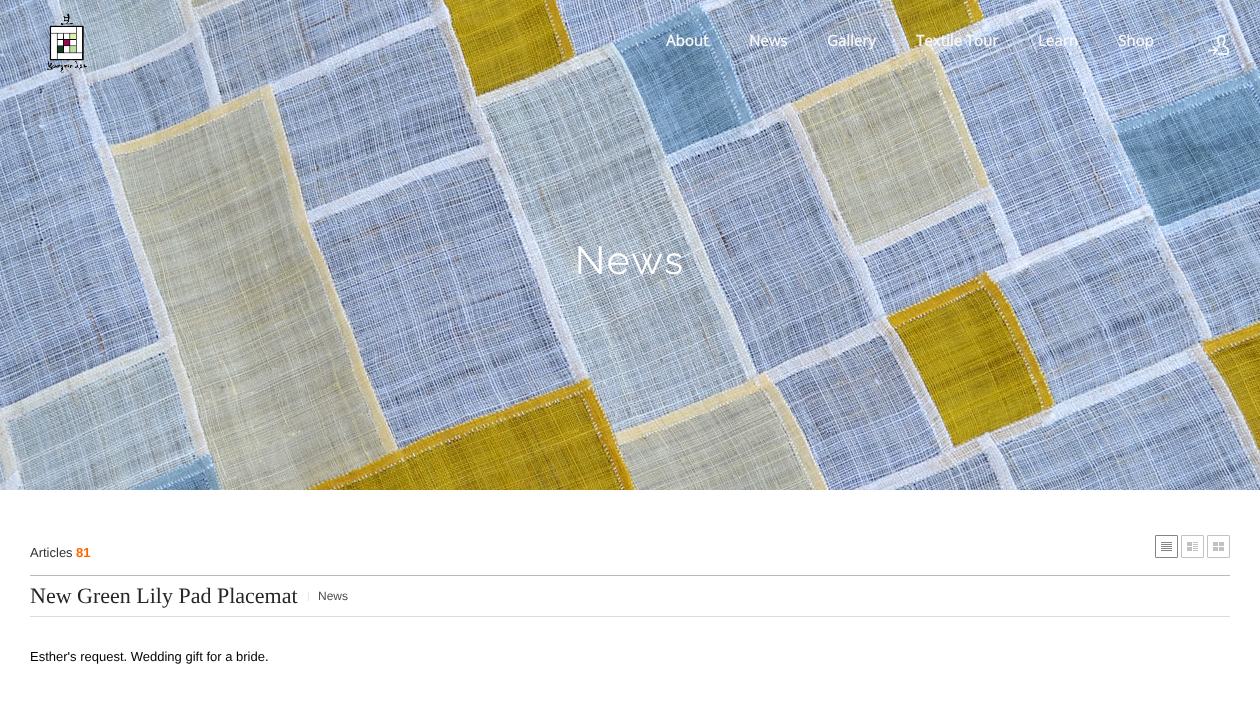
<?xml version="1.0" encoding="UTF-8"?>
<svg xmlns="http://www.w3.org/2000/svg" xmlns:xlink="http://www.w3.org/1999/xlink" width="1260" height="703">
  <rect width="100%" height="100%" fill="#ffffff" />
  <image x="0" y="0" width="1260" height="490" xlink:href="image3.png" />
  <image x="47" y="13" width="40" height="60" xlink:href="image1.png" />
  <image x="1208" y="34" width="22" height="21" xlink:href="image2.png" />
  <image x="1155" y="535" width="23" height="23" xlink:href="image4.png" />
  <image x="1181" y="535" width="23" height="23" xlink:href="image5.png" />
  <image x="1207" y="535" width="23" height="23" xlink:href="image6.png" />
  <rect x="30" y="575" width="1200" height="1" fill="#bababa" />
  <rect x="30" y="616" width="1200" height="1" fill="#dcdcdc" />
  <rect x="308" y="592" width="1" height="9" fill="#e7e7e7" />
  <text x="666" y="46" style="font-family: Open Sans; font-size: 15px; font-weight: bold; fill: #f6f6f6">About</text>
  <text x="749" y="46" style="font-family: Open Sans; font-size: 15px; font-weight: bold; fill: #f6f6f6">News</text>
  <text x="827" y="46" style="font-family: Open Sans; font-size: 15px; font-weight: bold; fill: #f6f6f6">Gallery</text>
  <text x="916" y="46" style="font-family: Open Sans; font-size: 15px; font-weight: bold; fill: #f6f6f6">Textile Tour</text>
  <text x="1038" y="46" style="font-family: Open Sans; font-size: 15px; font-weight: bold; fill: #f6f6f6">Learn</text>
  <text x="1118" y="46" style="font-family: Open Sans; font-size: 15px; font-weight: bold; fill: #f6f6f6">Shop</text>
  <text x="575" y="274" style="font-family: Raleway; font-size: 39px; letter-spacing: 2px; fill: #ffffff">News</text>
  <text x="30" y="557" style="font-family: Liberation Sans; font-size: 13px; fill: #333333">Articles</text>
  <text x="76" y="557" style="font-family: Liberation Sans; font-size: 13px; font-weight: bold; fill: #ff6600">81</text>
  <text x="30" y="603" style="font-family: Liberation Serif; font-size: 22px; fill: #262626">New Green Lily Pad Placemat</text>
  <text x="318" y="600" style="font-family: Liberation Sans; font-size: 12px; fill: #4d4d4d">News</text>
  <text x="30" y="661" style="font-family: Liberation Sans; font-size: 13px; fill: #000000">Esther's request. Wedding gift for a bride.</text>
</svg>
